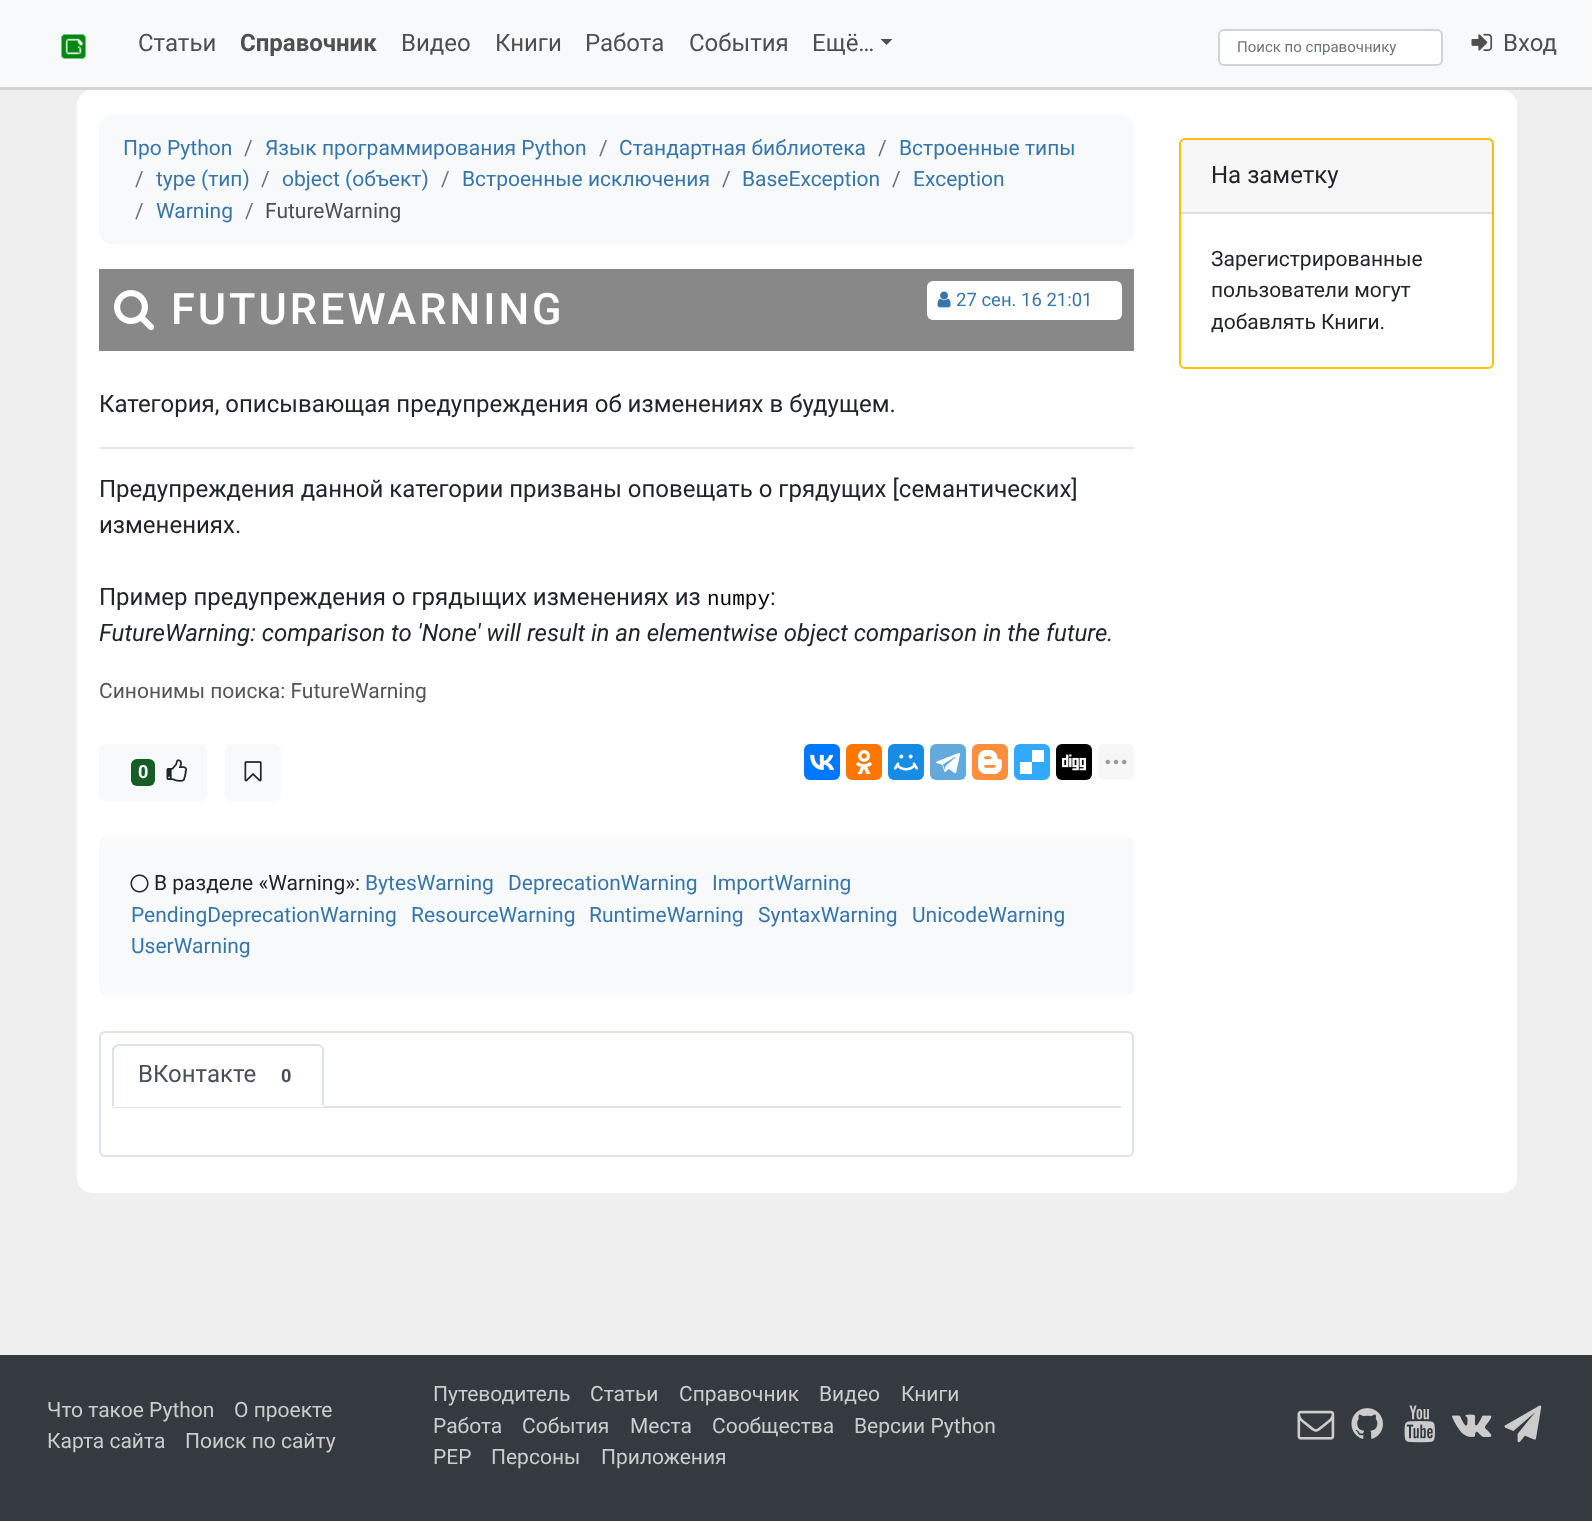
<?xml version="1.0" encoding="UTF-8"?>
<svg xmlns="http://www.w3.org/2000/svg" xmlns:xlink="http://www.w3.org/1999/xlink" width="1592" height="1521">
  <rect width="100%" height="100%" fill="#efefef" />
  <rect width="1592" height="87" fill="#f8f9fa" />
  <rect y="87" width="1592" height="3" fill="#d4d4d4" />
  <image x="61" y="34" width="25" height="25" xlink:href="image1.png" />
  <path d="M 880.5 39 h 12 l -6 6 z" fill="#4f4f4f" />
  <rect x="1219" y="30" width="223" height="35" rx="5" fill="#ffffff" stroke="#ced4da" stroke-width="2" />
  <image x="1471" y="33" width="22" height="18" xlink:href="image2.png" />
  <rect x="77" y="90" width="1440" height="1103" rx="15" fill="#ffffff" />
  <rect x="99" y="114" width="1035" height="131" rx="15" fill="#f8f9fa" />
  <rect x="99" y="269" width="1035" height="82" fill="#888888" />
  <image x="114" y="290" width="41" height="41" xlink:href="image3.png" />
  <rect x="927" y="281" width="195" height="39" rx="6" fill="#ffffff" />
  <image x="937" y="291" width="14" height="17" xlink:href="image4.png" />
  <rect x="99" y="447" width="1035" height="2" fill="#e6e6e6" />
  <rect x="99" y="744" width="108" height="57" rx="6" fill="#f8f9fa" />
  <rect x="131" y="759" width="24" height="27" rx="6" fill="#155d25" />
  <image x="166" y="759" width="22" height="23" xlink:href="image5.png" />
  <rect x="225" y="744" width="56" height="57" rx="6" fill="#f8f9fa" />
  <image x="244" y="761" width="18" height="21" xlink:href="image6.png" />
  <rect x="804" y="744" width="36" height="36" rx="6" fill="#0077ff" />
  <image x="810" y="754" width="24" height="16" xlink:href="image7.png" />
  <rect x="846" y="744" width="36" height="36" rx="6" fill="#ff7700" />
  <image x="856" y="750" width="17" height="24" xlink:href="image8.png" />
  <rect x="888" y="744" width="36" height="36" rx="6" fill="#168de2" />
  <image x="894" y="754" width="24" height="17" xlink:href="image9.png" />
  <rect x="930" y="744" width="36" height="36" rx="6" fill="#64a9dc" />
  <image x="936" y="753" width="24" height="21" xlink:href="image10.png" />
  <rect x="972" y="744" width="36" height="36" rx="6" fill="#fb8f3d" />
  <image x="978" y="750" width="24" height="24" xlink:href="image11.png" />
  <rect x="1014" y="744" width="36" height="36" rx="6" fill="#31a9ff" />
  <path d="M 1020 762 h 12 v 12 h -12 z m 12 -12 h 12 v 12 h -12 z" fill="#ffffff" fill-rule="evenodd" />
  <rect x="1056" y="744" width="36" height="36" rx="6" fill="#000000" />
  <image x="1062" y="754" width="24" height="17" xlink:href="image12.png" />
  <rect x="1098" y="744" width="36" height="36" rx="6" fill="#f7f7f7" />
  <image x="1105" y="759" width="22" height="6" xlink:href="image13.png" />
  <rect x="99" y="837" width="1035" height="158" rx="6" fill="#f8f9fa" />
  <image x="130" y="874" width="19" height="19" xlink:href="image14.png" />
  <rect x="100" y="1032" width="1033" height="124" rx="5" fill="none" stroke="#dee2e6" stroke-width="2" />
  <rect x="113" y="1106" width="1008" height="2" fill="#dee2e6" />
  <path d="M 119 1044 h 199 c 3.5 0 6 2.5 6 6 v 57 h -211 v -57 c 0 -3.5 2.5 -6 6 -6 z" fill="#ffffff" />
  <path d="M 118 1044 c -1 0 -3 1 -4 2 l 2 1 l 2 -1 h 200 l 3 1 l 1 -1 c -1 -1 -2 -2 -4 -2 z" fill="#dee2e6" />
  <path d="M 324 1107 v -57 c 0 -2 -1 -3 -2 -4 l -1 1 l 1 3 v 55 z" fill="#dee2e6" />
  <path d="M 324 1107 l -2 -2 v 1 h -208 l -2 1 z" fill="#ffffff" />
  <path d="M 112 1107 v -59 l 2 -2 l 2 1 l -2 3 v 56 z" fill="#dee2e6" />
  <rect x="1180" y="139" width="313" height="229" rx="5" fill="none" stroke="#ffc107" stroke-width="2" />
  <rect x="1181" y="140" width="312" height="73" fill="#000000" fill-opacity="0.03" />
  <rect x="1181" y="212" width="312" height="2" fill="#000000" fill-opacity="0.12" />
  <rect y="1355" width="1592" height="166" fill="#343a40" />
  <image x="1297" y="1410" width="38" height="30" xlink:href="image15.png" />
  <image x="1351" y="1408" width="32" height="31" xlink:href="image16.png" />
  <image x="1404" y="1405" width="31" height="38" xlink:href="image17.png" />
  <image x="1452" y="1414" width="40" height="23" xlink:href="image18.png" />
  <image x="1504" y="1405" width="38" height="38" xlink:href="image19.png" />
  <text x="138" y="51" style="font-family: Roboto; font-size: 24px; fill: #4f4f4f">Статьи</text>
  <text x="240" y="51" style="font-family: Roboto; font-size: 24px; font-weight: bold; fill: #4f4f4f">Справочник</text>
  <text x="401" y="51" style="font-family: Roboto; font-size: 24px; fill: #4f4f4f">Видео</text>
  <text x="495" y="51" style="font-family: Roboto; font-size: 24px; fill: #4f4f4f">Книги</text>
  <text x="585" y="51" style="font-family: Roboto; font-size: 24px; fill: #4f4f4f">Работа</text>
  <text x="689" y="51" style="font-family: Roboto; font-size: 24px; fill: #4f4f4f">События</text>
  <text x="812" y="51" style="font-family: Roboto; font-size: 24px; fill: #4f4f4f">Ещё…</text>
  <text x="1237" y="52" style="font-family: Roboto; font-size: 15px; fill: #6c757d">Поиск по справочнику</text>
  <text x="1503" y="51" style="font-family: Roboto; font-size: 24px; fill: #4f4f4f">Вход</text>
  <text x="123" y="155" style="font-family: Roboto; font-size: 21px; fill: #3776ab">Про Python</text>
  <text x="244" y="155" style="font-family: Roboto; font-size: 21px; fill: #6c757d">/</text>
  <text x="265" y="155" style="font-family: Roboto; font-size: 21px; fill: #3776ab">Язык программирования Python</text>
  <text x="599" y="155" style="font-family: Roboto; font-size: 21px; fill: #6c757d">/</text>
  <text x="619" y="155" style="font-family: Roboto; font-size: 21px; fill: #3776ab">Стандартная библиотека</text>
  <text x="878" y="155" style="font-family: Roboto; font-size: 21px; fill: #6c757d">/</text>
  <text x="899" y="155" style="font-family: Roboto; font-size: 21px; fill: #3776ab">Встроенные типы</text>
  <text x="135" y="186" style="font-family: Roboto; font-size: 21px; fill: #6c757d">/</text>
  <text x="156" y="186" style="font-family: Roboto; font-size: 21px; fill: #3776ab">type (тип)</text>
  <text x="261" y="186" style="font-family: Roboto; font-size: 21px; fill: #6c757d">/</text>
  <text x="282" y="186" style="font-family: Roboto; font-size: 21px; fill: #3776ab">object (объект)</text>
  <text x="441" y="186" style="font-family: Roboto; font-size: 21px; fill: #6c757d">/</text>
  <text x="462" y="186" style="font-family: Roboto; font-size: 21px; fill: #3776ab">Встроенные исключения</text>
  <text x="722" y="186" style="font-family: Roboto; font-size: 21px; fill: #6c757d">/</text>
  <text x="742" y="186" style="font-family: Roboto; font-size: 21px; fill: #3776ab">BaseException</text>
  <text x="892" y="186" style="font-family: Roboto; font-size: 21px; fill: #6c757d">/</text>
  <text x="913" y="186" style="font-family: Roboto; font-size: 21px; fill: #3776ab">Exception</text>
  <text x="135" y="218" style="font-family: Roboto; font-size: 21px; fill: #6c757d">/</text>
  <text x="156" y="218" style="font-family: Roboto; font-size: 21px; fill: #3776ab">Warning</text>
  <text x="245" y="218" style="font-family: Roboto; font-size: 21px; fill: #6c757d">/</text>
  <text x="265" y="218" style="font-family: Roboto; font-size: 21px; fill: #4f4f4f">FutureWarning</text>
  <text x="171" y="324" style="font-family: Roboto; font-size: 43.25px; font-weight: 500; letter-spacing: 3px; fill: #ffffff">FUTUREWARNING</text>
  <text x="956" y="306" style="font-family: Roboto; font-size: 18.5px; fill: #3776ab">27 сен. 16 21:01</text>
  <text x="99" y="412" style="font-family: Roboto; font-size: 24px; fill: #212529">Категория, описывающая предупреждения об изменениях в будущем.</text>
  <text x="99" y="497" style="font-family: Roboto; font-size: 24px; fill: #212529">Предупреждения данной категории призваны оповещать о грядущих [семантических]</text>
  <text x="99" y="533" style="font-family: Roboto; font-size: 24px; fill: #212529">изменениях.</text>
  <text x="99" y="605" style="font-family: Roboto; font-size: 24px; fill: #212529">Пример предупреждения о грядыщих изменениях из</text>
  <text x="707" y="605" style="font-family: Liberation Mono; font-size: 21px; fill: #000000">numpy</text>
  <text x="770" y="605" style="font-family: Roboto; font-size: 24px; fill: #212529">:</text>
  <text x="99" y="641" style="font-family: Roboto; font-size: 24px; font-style: italic; fill: #212529">FutureWarning: comparison to 'None' will result in an elementwise object comparison in the future.</text>
  <text x="99" y="698" style="font-family: Roboto; font-size: 21px; fill: #555555">Синонимы поиска: FutureWarning</text>
  <text x="138" y="778" style="font-family: Roboto; font-size: 18px; font-weight: bold; fill: #ffffff">0</text>
  <text x="154" y="890" style="font-family: Roboto; font-size: 21px; fill: #212529">В разделе «Warning»:</text>
  <text x="365" y="890" style="font-family: Roboto; font-size: 21px; fill: #3776ab">BytesWarning</text>
  <text x="508" y="890" style="font-family: Roboto; font-size: 21px; fill: #3776ab">DeprecationWarning</text>
  <text x="712" y="890" style="font-family: Roboto; font-size: 21px; fill: #3776ab">ImportWarning</text>
  <text x="131" y="922" style="font-family: Roboto; font-size: 21px; fill: #3776ab">PendingDeprecationWarning</text>
  <text x="411" y="922" style="font-family: Roboto; font-size: 21px; fill: #3776ab">ResourceWarning</text>
  <text x="589" y="922" style="font-family: Roboto; font-size: 21px; fill: #3776ab">RuntimeWarning</text>
  <text x="758" y="922" style="font-family: Roboto; font-size: 21px; fill: #3776ab">SyntaxWarning</text>
  <text x="912" y="922" style="font-family: Roboto; font-size: 21px; fill: #3776ab">UnicodeWarning</text>
  <text x="131" y="953" style="font-family: Roboto; font-size: 21px; fill: #3776ab">UserWarning</text>
  <text x="138" y="1082" style="font-family: Roboto; font-size: 24px; fill: #495057">ВКонтакте</text>
  <text x="281" y="1082" style="font-family: Roboto; font-size: 18px; font-weight: bold; fill: #495057">0</text>
  <text x="1211" y="183" style="font-family: Roboto; font-size: 24px; fill: #212529">На заметку</text>
  <text x="1211" y="266" style="font-family: Roboto; font-size: 21px; fill: #212529">Зарегистрированные</text>
  <text x="1211" y="297" style="font-family: Roboto; font-size: 21px; fill: #212529">пользователи могут</text>
  <text x="1211" y="329" style="font-family: Roboto; font-size: 21px; fill: #212529">добавлять Книги.</text>
  <text x="47" y="1417" style="font-family: Roboto; font-size: 21px; fill: #cccccc">Что такое Python</text>
  <text x="234" y="1417" style="font-family: Roboto; font-size: 21px; fill: #cccccc">О проекте</text>
  <text x="47" y="1448" style="font-family: Roboto; font-size: 21px; fill: #cccccc">Карта сайта</text>
  <text x="185" y="1448" style="font-family: Roboto; font-size: 21px; fill: #cccccc">Поиск по сайту</text>
  <text x="433" y="1401" style="font-family: Roboto; font-size: 21px; fill: #cccccc">Путеводитель</text>
  <text x="590" y="1401" style="font-family: Roboto; font-size: 21px; fill: #cccccc">Статьи</text>
  <text x="679" y="1401" style="font-family: Roboto; font-size: 21px; fill: #cccccc">Справочник</text>
  <text x="819" y="1401" style="font-family: Roboto; font-size: 21px; fill: #cccccc">Видео</text>
  <text x="901" y="1401" style="font-family: Roboto; font-size: 21px; fill: #cccccc">Книги</text>
  <text x="433" y="1433" style="font-family: Roboto; font-size: 21px; fill: #cccccc">Работа</text>
  <text x="522" y="1433" style="font-family: Roboto; font-size: 21px; fill: #cccccc">События</text>
  <text x="630" y="1433" style="font-family: Roboto; font-size: 21px; fill: #cccccc">Места</text>
  <text x="712" y="1433" style="font-family: Roboto; font-size: 21px; fill: #cccccc">Сообщества</text>
  <text x="854" y="1433" style="font-family: Roboto; font-size: 21px; fill: #cccccc">Версии Python</text>
  <text x="433" y="1464" style="font-family: Roboto; font-size: 21px; fill: #cccccc">PEP</text>
  <text x="491" y="1464" style="font-family: Roboto; font-size: 21px; fill: #cccccc">Персоны</text>
  <text x="601" y="1464" style="font-family: Roboto; font-size: 21px; fill: #cccccc">Приложения</text>
</svg>
